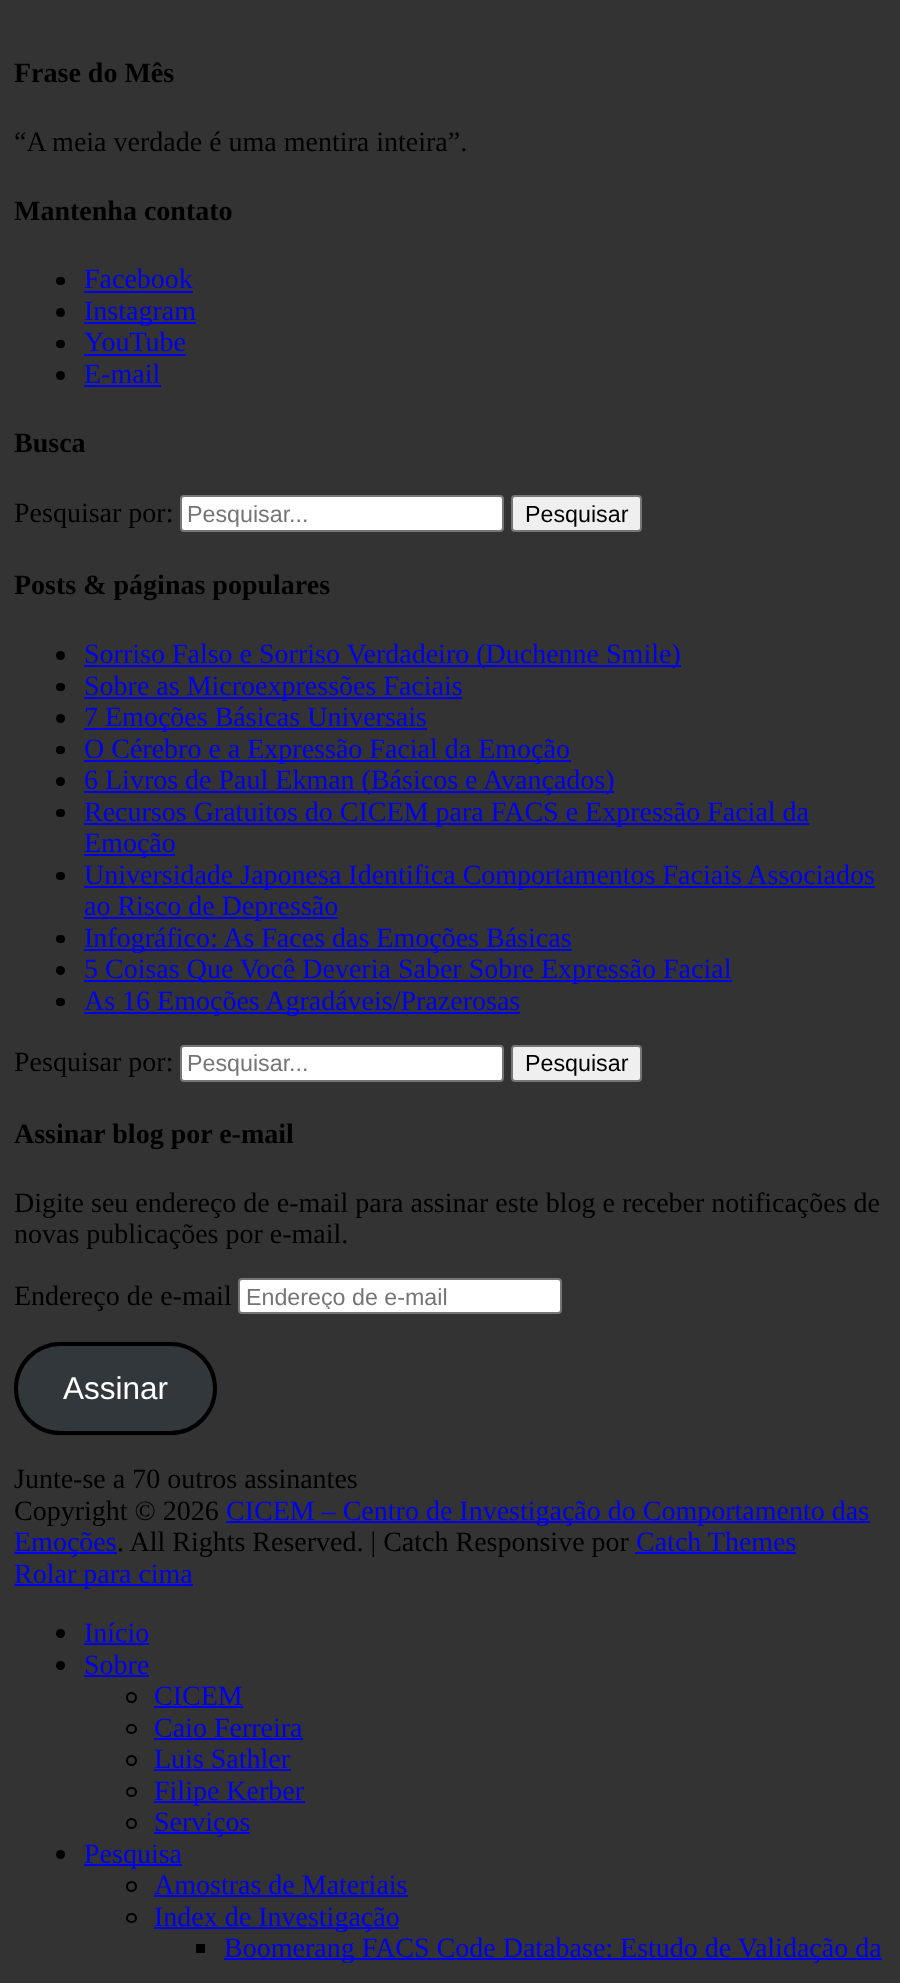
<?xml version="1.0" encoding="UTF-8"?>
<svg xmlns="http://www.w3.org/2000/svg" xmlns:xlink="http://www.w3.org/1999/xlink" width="900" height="1983">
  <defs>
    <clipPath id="clip1"><rect x="245" y="1283" width="310" height="26" /></clipPath>
  </defs>
  <rect width="100%" height="100%" fill="#333333" />
  <rect x="56" y="277" width="9" height="8" rx="4" fill="#000000" />
  <rect x="84" y="291" width="109" height="2" fill="#0000ee" />
  <circle cx="60.5" cy="312.5" r="4.5" fill="#000000" />
  <rect x="84" y="322" width="112" height="2" fill="#0000ee" />
  <rect x="56" y="340" width="9" height="8" rx="4" fill="#000000" />
  <rect x="84" y="354" width="102" height="2" fill="#0000ee" />
  <circle cx="60.5" cy="375.5" r="4.5" fill="#000000" />
  <rect x="84" y="385" width="77" height="2" fill="#0000ee" />
  <rect x="181" y="496" width="322" height="35" rx="3" fill="#ffffff" stroke="#767676" stroke-width="2" />
  <rect x="512" y="496" width="129" height="35" rx="3" fill="#efefef" stroke="#767676" stroke-width="2" />
  <circle cx="60.5" cy="655.5" r="4.5" fill="#000000" />
  <rect x="84" y="665" width="597" height="2" fill="#0000ee" />
  <rect x="56" y="683" width="9" height="8" rx="4" fill="#000000" />
  <rect x="84" y="697" width="378" height="2" fill="#0000ee" />
  <circle cx="60.5" cy="718.5" r="4.5" fill="#000000" />
  <rect x="84" y="728" width="343" height="2" fill="#0000ee" />
  <rect x="56" y="746" width="9" height="8" rx="4" fill="#000000" />
  <rect x="84" y="760" width="487" height="2" fill="#0000ee" />
  <circle cx="60.5" cy="781.5" r="4.5" fill="#000000" />
  <rect x="84" y="791" width="530" height="2" fill="#0000ee" />
  <rect x="56" y="809" width="9" height="8" rx="4" fill="#000000" />
  <rect x="84" y="823" width="725" height="2" fill="#0000ee" />
  <rect x="84" y="854" width="91" height="2" fill="#0000ee" />
  <rect x="56" y="872" width="9" height="8" rx="4" fill="#000000" />
  <rect x="84" y="886" width="791" height="2" fill="#0000ee" />
  <rect x="84" y="917" width="254" height="2" fill="#0000ee" />
  <rect x="56" y="935" width="9" height="8" rx="4" fill="#000000" />
  <rect x="84" y="949" width="488" height="2" fill="#0000ee" />
  <circle cx="60.5" cy="970.5" r="4.5" fill="#000000" />
  <rect x="84" y="980" width="648" height="2" fill="#0000ee" />
  <rect x="56" y="998" width="9" height="8" rx="4" fill="#000000" />
  <rect x="84" y="1012" width="436" height="2" fill="#0000ee" />
  <rect x="181" y="1046" width="322" height="35" rx="3" fill="#ffffff" stroke="#767676" stroke-width="2" />
  <rect x="512" y="1046" width="129" height="35" rx="3" fill="#efefef" stroke="#767676" stroke-width="2" />
  <rect x="239" y="1279" width="322" height="34" rx="3" fill="#ffffff" stroke="#767676" stroke-width="2" />
  <rect x="16" y="1344" width="199" height="89" rx="44.5" fill="#32373c" stroke="#000000" stroke-width="4" />
  <rect x="226" y="1521" width="644" height="2" fill="#0000ee" />
  <rect x="14" y="1552" width="103" height="2" fill="#0000ee" />
  <rect x="635" y="1552" width="161" height="2" fill="#0000ee" />
  <rect x="14" y="1584" width="179" height="2" fill="#0000ee" />
  <circle cx="60.5" cy="1633.5" r="4.5" fill="#000000" />
  <rect x="84" y="1643" width="65" height="2" fill="#0000ee" />
  <circle cx="60.5" cy="1665.5" r="4.5" fill="#000000" />
  <rect x="84" y="1675" width="65" height="2" fill="#0000ee" />
  <circle cx="131.5" cy="1697.5" r="4.5" fill="none" stroke="#000000" stroke-width="2" />
  <rect x="154" y="1706" width="89" height="2" fill="#0000ee" />
  <rect x="127" y="1725" width="9" height="8" rx="4" fill="none" stroke="#000000" stroke-width="2" />
  <rect x="154" y="1738" width="149" height="2" fill="#0000ee" />
  <circle cx="131.5" cy="1760.5" r="4.5" fill="none" stroke="#000000" stroke-width="2" />
  <rect x="154" y="1769" width="137" height="2" fill="#0000ee" />
  <rect x="127" y="1788" width="9" height="8" rx="4" fill="none" stroke="#000000" stroke-width="2" />
  <rect x="154" y="1801" width="151" height="2" fill="#0000ee" />
  <circle cx="131.5" cy="1823.5" r="4.5" fill="none" stroke="#000000" stroke-width="2" />
  <rect x="154" y="1832" width="96" height="2" fill="#0000ee" />
  <circle cx="60.5" cy="1854.5" r="4.5" fill="#000000" />
  <rect x="84" y="1864" width="98" height="2" fill="#0000ee" />
  <circle cx="131.5" cy="1886.5" r="4.5" fill="none" stroke="#000000" stroke-width="2" />
  <rect x="154" y="1895" width="254" height="2" fill="#0000ee" />
  <rect x="127" y="1914" width="9" height="8" rx="4" fill="none" stroke="#000000" stroke-width="2" />
  <rect x="154" y="1927" width="245" height="2" fill="#0000ee" />
  <rect x="196" y="1944" width="9" height="9" fill="#000000" />
  <rect x="224" y="1958" width="658" height="2" fill="#0000ee" />
  <text x="14" y="82" style="font-family: Liberation Serif; font-size: 28px; font-weight: bold; fill: #000000">Frase do Mês</text>
  <text x="14" y="151" style="font-family: Liberation Serif; font-size: 28px; fill: #000000">“A meia verdade é uma mentira inteira”.</text>
  <text x="14" y="220" style="font-family: Liberation Serif; font-size: 28px; font-weight: bold; fill: #000000">Mantenha contato</text>
  <text x="84" y="288" style="font-family: Liberation Serif; font-size: 28px; fill: #0000ee">Facebook</text>
  <text x="84" y="320" style="font-family: Liberation Serif; font-size: 28px; fill: #0000ee">Instagram</text>
  <text x="84" y="351" style="font-family: Liberation Serif; font-size: 28px; fill: #0000ee">YouTube</text>
  <text x="84" y="383" style="font-family: Liberation Serif; font-size: 28px; fill: #0000ee">E-mail</text>
  <text x="14" y="452" style="font-family: Liberation Serif; font-size: 28px; font-weight: bold; fill: #000000">Busca</text>
  <text x="14" y="522" style="font-family: Liberation Serif; font-size: 28px; fill: #000000">Pesquisar por:</text>
  <text x="187" y="522" style="font-family: Liberation Sans; font-size: 23.25px; fill: #757575">Pesquisar...</text>
  <text x="525" y="522" style="font-family: Liberation Sans; font-size: 23.25px; fill: #000000">Pesquisar</text>
  <text x="14" y="594" style="font-family: Liberation Serif; font-size: 28px; font-weight: bold; fill: #000000">Posts &amp; páginas populares</text>
  <text x="84" y="663" style="font-family: Liberation Serif; font-size: 28px; fill: #0000ee">Sorriso Falso e Sorriso Verdadeiro (Duchenne Smile)</text>
  <text x="84" y="695" style="font-family: Liberation Serif; font-size: 28px; fill: #0000ee">Sobre as Microexpressões Faciais</text>
  <text x="84" y="726" style="font-family: Liberation Serif; font-size: 28px; fill: #0000ee">7 Emoções Básicas Universais</text>
  <text x="84" y="758" style="font-family: Liberation Serif; font-size: 28px; fill: #0000ee">O Cérebro e a Expressão Facial da Emoção</text>
  <text x="84" y="789" style="font-family: Liberation Serif; font-size: 28px; fill: #0000ee">6 Livros de Paul Ekman (Básicos e Avançados)</text>
  <text x="84" y="821" style="font-family: Liberation Serif; font-size: 28px; fill: #0000ee">Recursos Gratuitos do CICEM para FACS e Expressão Facial da</text>
  <text x="84" y="852" style="font-family: Liberation Serif; font-size: 28px; fill: #0000ee">Emoção</text>
  <text x="84" y="884" style="font-family: Liberation Serif; font-size: 28px; fill: #0000ee">Universidade Japonesa Identifica Comportamentos Faciais Associados</text>
  <text x="84" y="915" style="font-family: Liberation Serif; font-size: 28px; fill: #0000ee">ao Risco de Depressão</text>
  <text x="84" y="947" style="font-family: Liberation Serif; font-size: 28px; fill: #0000ee">Infográfico: As Faces das Emoções Básicas</text>
  <text x="84" y="978" style="font-family: Liberation Serif; font-size: 28px; fill: #0000ee">5 Coisas Que Você Deveria Saber Sobre Expressão Facial</text>
  <text x="84" y="1010" style="font-family: Liberation Serif; font-size: 28px; fill: #0000ee">As 16 Emoções Agradáveis/Prazerosas</text>
  <text x="14" y="1071" style="font-family: Liberation Serif; font-size: 28px; fill: #000000">Pesquisar por:</text>
  <text x="187" y="1071" style="font-family: Liberation Sans; font-size: 23.25px; fill: #757575">Pesquisar...</text>
  <text x="525" y="1071" style="font-family: Liberation Sans; font-size: 23.25px; fill: #000000">Pesquisar</text>
  <text x="14" y="1143" style="font-family: Liberation Serif; font-size: 28px; font-weight: bold; fill: #000000">Assinar blog por e-mail</text>
  <text x="14" y="1212" style="font-family: Liberation Serif; font-size: 28px; fill: #000000">Digite seu endereço de e-mail para assinar este blog e receber notificações de</text>
  <text x="14" y="1243" style="font-family: Liberation Serif; font-size: 28px; fill: #000000">novas publicações por e-mail.</text>
  <text x="14" y="1305" style="font-family: Liberation Serif; font-size: 28px; fill: #000000">Endereço de e-mail</text>
  <g clip-path="url(#clip1)">
    <text x="246" y="1305" style="font-family: Liberation Sans; font-size: 23.25px; fill: #757575">Endereço de e-mail</text>
  </g>
  <text x="63" y="1399" style="font-family: Liberation Sans; font-size: 31.5px; fill: #ffffff">Assinar</text>
  <text x="14" y="1488" style="font-family: Liberation Serif; font-size: 28px; fill: #000000">Junte-se a 70 outros assinantes</text>
  <text x="14" y="1520" style="font-family: Liberation Serif; font-size: 28px; fill: #000000">Copyright © 2026</text>
  <text x="226" y="1520" style="font-family: Liberation Serif; font-size: 28px; fill: #0000ee">CICEM – Centro de Investigação do Comportamento das</text>
  <text x="14" y="1551" style="font-family: Liberation Serif; font-size: 28px; fill: #0000ee">Emoções</text>
  <text x="117" y="1551" style="font-family: Liberation Serif; font-size: 28px; fill: #000000">. All Rights Reserved. | Catch Responsive por</text>
  <text x="636" y="1551" style="font-family: Liberation Serif; font-size: 28px; fill: #0000ee">Catch Themes</text>
  <text x="14" y="1583" style="font-family: Liberation Serif; font-size: 28px; fill: #0000ee">Rolar para cima</text>
  <text x="84" y="1642" style="font-family: Liberation Serif; font-size: 28px; fill: #0000ee">Início</text>
  <text x="84" y="1674" style="font-family: Liberation Serif; font-size: 28px; fill: #0000ee">Sobre</text>
  <text x="154" y="1705" style="font-family: Liberation Serif; font-size: 28px; fill: #0000ee">CICEM</text>
  <text x="154" y="1737" style="font-family: Liberation Serif; font-size: 28px; fill: #0000ee">Caio Ferreira</text>
  <text x="154" y="1768" style="font-family: Liberation Serif; font-size: 28px; fill: #0000ee">Luis Sathler</text>
  <text x="154" y="1800" style="font-family: Liberation Serif; font-size: 28px; fill: #0000ee">Filipe Kerber</text>
  <text x="154" y="1831" style="font-family: Liberation Serif; font-size: 28px; fill: #0000ee">Serviços</text>
  <text x="84" y="1863" style="font-family: Liberation Serif; font-size: 28px; fill: #0000ee">Pesquisa</text>
  <text x="154" y="1894" style="font-family: Liberation Serif; font-size: 28px; fill: #0000ee">Amostras de Materiais</text>
  <text x="154" y="1926" style="font-family: Liberation Serif; font-size: 28px; fill: #0000ee">Index de Investigação</text>
  <text x="224" y="1957" style="font-family: Liberation Serif; font-size: 28px; fill: #0000ee">Boomerang FACS Code Database: Estudo de Validação da</text>
</svg>
